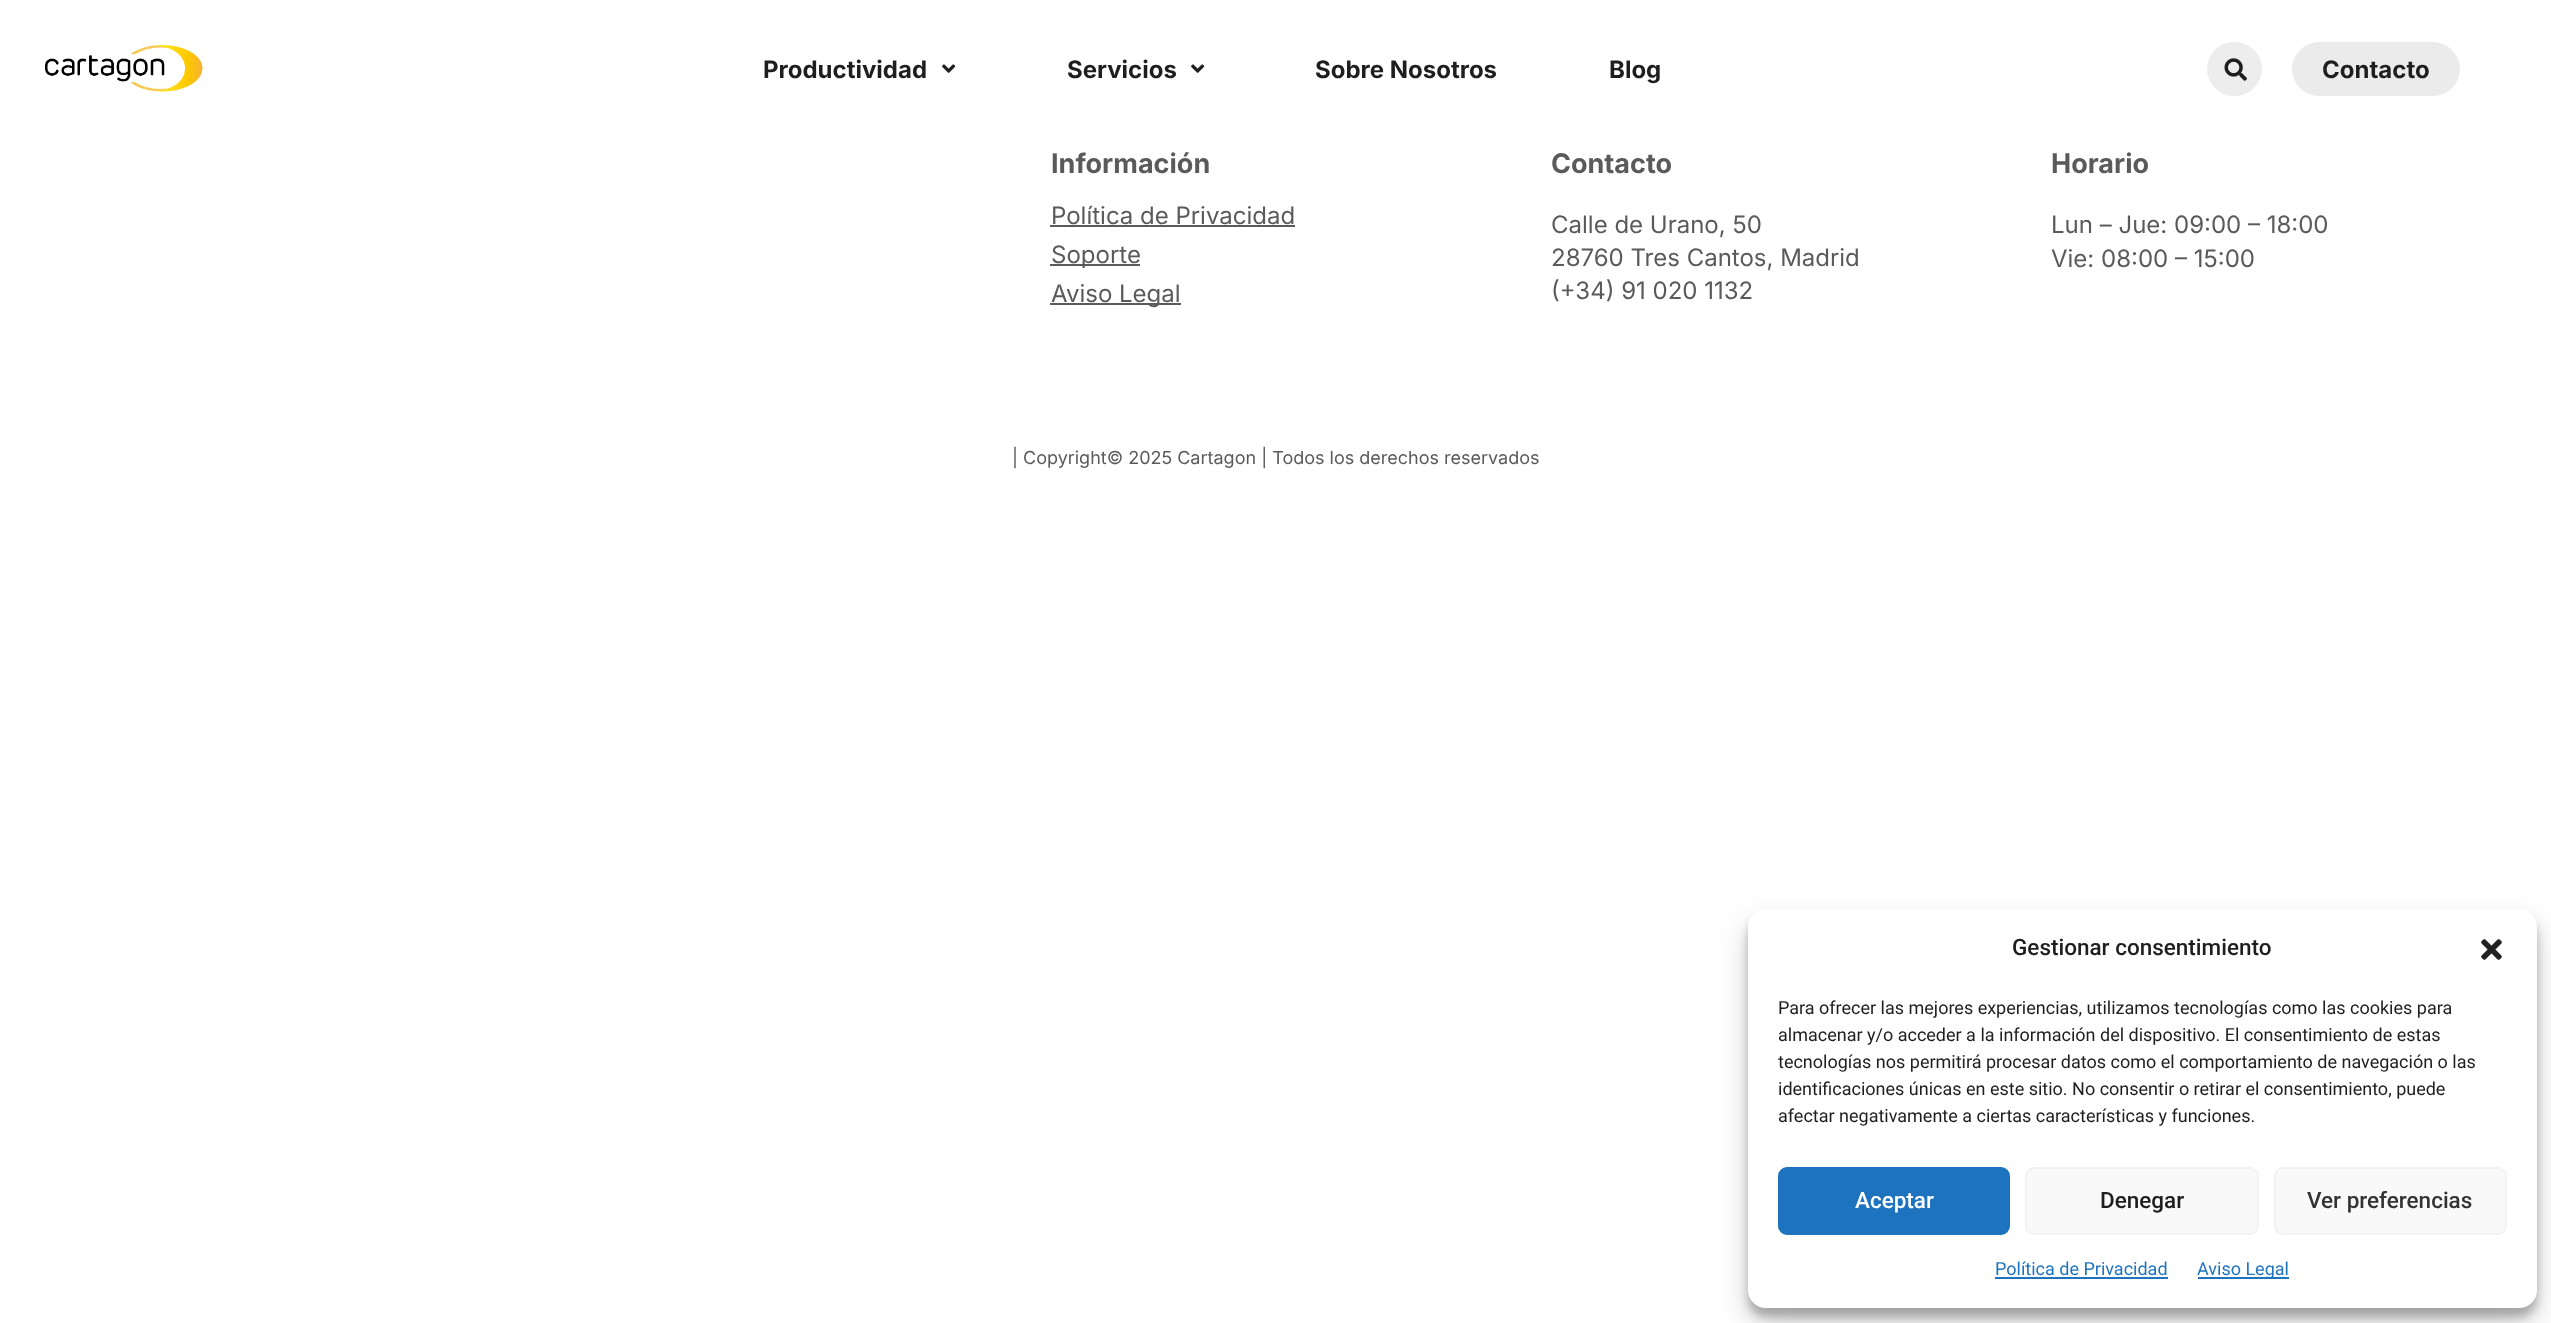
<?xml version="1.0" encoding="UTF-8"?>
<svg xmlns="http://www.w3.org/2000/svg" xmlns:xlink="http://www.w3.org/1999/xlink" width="2551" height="1323">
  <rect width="100%" height="100%" fill="#ffffff" />
  <image x="45" y="45" width="158" height="47" xlink:href="image1.png" />
  <image x="942" y="64" width="14" height="9" xlink:href="image2.png" />
  <image x="1191" y="64" width="14" height="9" xlink:href="image2.png" />
  <rect x="2207" y="42" width="55" height="54" rx="27" fill="#ededed" />
  <image x="2224" y="58" width="23" height="23" xlink:href="image3.png" />
  <rect x="2292" y="42" width="168" height="54" rx="27" fill="#ebebeb" />
  <rect x="1050" y="225" width="245" height="2" fill="#5a5a5a" />
  <rect x="1050" y="264" width="90" height="2" fill="#5a5a5a" />
  <rect x="1050" y="303" width="131" height="2" fill="#5a5a5a" />
  <rect x="1748" y="918" width="789" height="399" rx="18" fill="#000000" fill-opacity="0.23" filter="blur(4.5px)" />
  <rect x="1748" y="924" width="789" height="399" rx="18" fill="#000000" fill-opacity="0.19" filter="blur(15px)" />
  <rect x="1748" y="909" width="789" height="399" rx="18" fill="#ffffff" />
  <image x="2481" y="939" width="21" height="21" xlink:href="image4.png" />
  <rect x="1779" y="1168" width="230" height="66" rx="8" fill="#1e73be" stroke="#1e73be" stroke-width="2" />
  <rect x="2026" y="1168" width="232" height="66" rx="8" fill="#f9f9f9" stroke="#f2f2f2" stroke-width="2" />
  <rect x="2275" y="1168" width="231" height="66" rx="8" fill="#f9f9f9" stroke="#f2f2f2" stroke-width="2" />
  <rect x="1995" y="1277" width="173" height="2" fill="#1e73be" />
  <rect x="2198" y="1277" width="91" height="2" fill="#1e73be" />
  <text x="763" y="78" style="font-family: Inter; font-size: 24px; font-weight: bold; fill: #1e1e1e">Productividad</text>
  <text x="1067" y="78" style="font-family: Inter; font-size: 24px; font-weight: bold; fill: #1e1e1e">Servicios</text>
  <text x="1315" y="78" style="font-family: Inter; font-size: 24px; font-weight: bold; fill: #1e1e1e">Sobre Nosotros</text>
  <text x="1609" y="78" style="font-family: Inter; font-size: 24px; font-weight: bold; fill: #1e1e1e">Blog</text>
  <text x="2322" y="78" style="font-family: Inter; font-size: 24px; font-weight: bold; fill: #1e1e1e">Contacto</text>
  <text x="1051" y="173" style="font-family: Inter; font-size: 27px; font-weight: bold; fill: #5a5a5a">Información</text>
  <text x="1051" y="224" style="font-family: Inter; font-size: 24px; fill: #5a5a5a">Política de Privacidad</text>
  <text x="1051" y="263" style="font-family: Inter; font-size: 24px; fill: #5a5a5a">Soporte</text>
  <text x="1051" y="302" style="font-family: Inter; font-size: 24px; fill: #5a5a5a">Aviso Legal</text>
  <text x="1551" y="173" style="font-family: Inter; font-size: 27px; font-weight: bold; fill: #5a5a5a">Contacto</text>
  <text x="1551" y="233" style="font-family: Inter; font-size: 24px; fill: #5a5a5a">Calle de Urano, 50</text>
  <text x="1551" y="266" style="font-family: Inter; font-size: 24px; fill: #5a5a5a">28760 Tres Cantos, Madrid</text>
  <text x="1551" y="299" style="font-family: Inter; font-size: 24px; fill: #5a5a5a">(+34) 91 020 1132</text>
  <text x="2051" y="173" style="font-family: Inter; font-size: 27px; font-weight: bold; fill: #5a5a5a">Horario</text>
  <text x="2051" y="233" style="font-family: Inter; font-size: 24px; fill: #5a5a5a">Lun – Jue: 09:00 – 18:00</text>
  <text x="2051" y="267" style="font-family: Inter; font-size: 24px; fill: #5a5a5a">Vie: 08:00 – 15:00</text>
  <text x="1012" y="464" style="font-family: Inter; font-size: 18px; fill: #5a5a5a">| Copyright© 2025 Cartagon | Todos los derechos reservados</text>
  <text x="2012" y="955" style="font-family: Roboto; font-size: 22.5px; font-weight: 500; fill: #1e1e1e">Gestionar consentimiento</text>
  <text x="1778" y="1014" style="font-family: Roboto; font-size: 18px; fill: #1e1e1e">Para ofrecer las mejores experiencias, utilizamos tecnologías como las cookies para</text>
  <text x="1778" y="1041" style="font-family: Roboto; font-size: 18px; fill: #1e1e1e">almacenar y/o acceder a la información del dispositivo. El consentimiento de estas</text>
  <text x="1778" y="1068" style="font-family: Roboto; font-size: 18px; fill: #1e1e1e">tecnologías nos permitirá procesar datos como el comportamiento de navegación o las</text>
  <text x="1778" y="1095" style="font-family: Roboto; font-size: 18px; fill: #1e1e1e">identificaciones únicas en este sitio. No consentir o retirar el consentimiento, puede</text>
  <text x="1778" y="1122" style="font-family: Roboto; font-size: 18px; fill: #1e1e1e">afectar negativamente a ciertas características y funciones.</text>
  <text x="1855" y="1208" style="font-family: Roboto; font-size: 22.5px; font-weight: 500; fill: #ffffff">Aceptar</text>
  <text x="2100" y="1208" style="font-family: Roboto; font-size: 22.5px; font-weight: 500; fill: #1e1e1e">Denegar</text>
  <text x="2307" y="1208" style="font-family: Roboto; font-size: 22.5px; font-weight: 500; fill: #333333">Ver preferencias</text>
  <text x="1995" y="1275" style="font-family: Roboto; font-size: 18px; fill: #1e73be">Política de Privacidad</text>
  <text x="2197" y="1275" style="font-family: Roboto; font-size: 18px; fill: #1e73be">Aviso Legal</text>
</svg>
